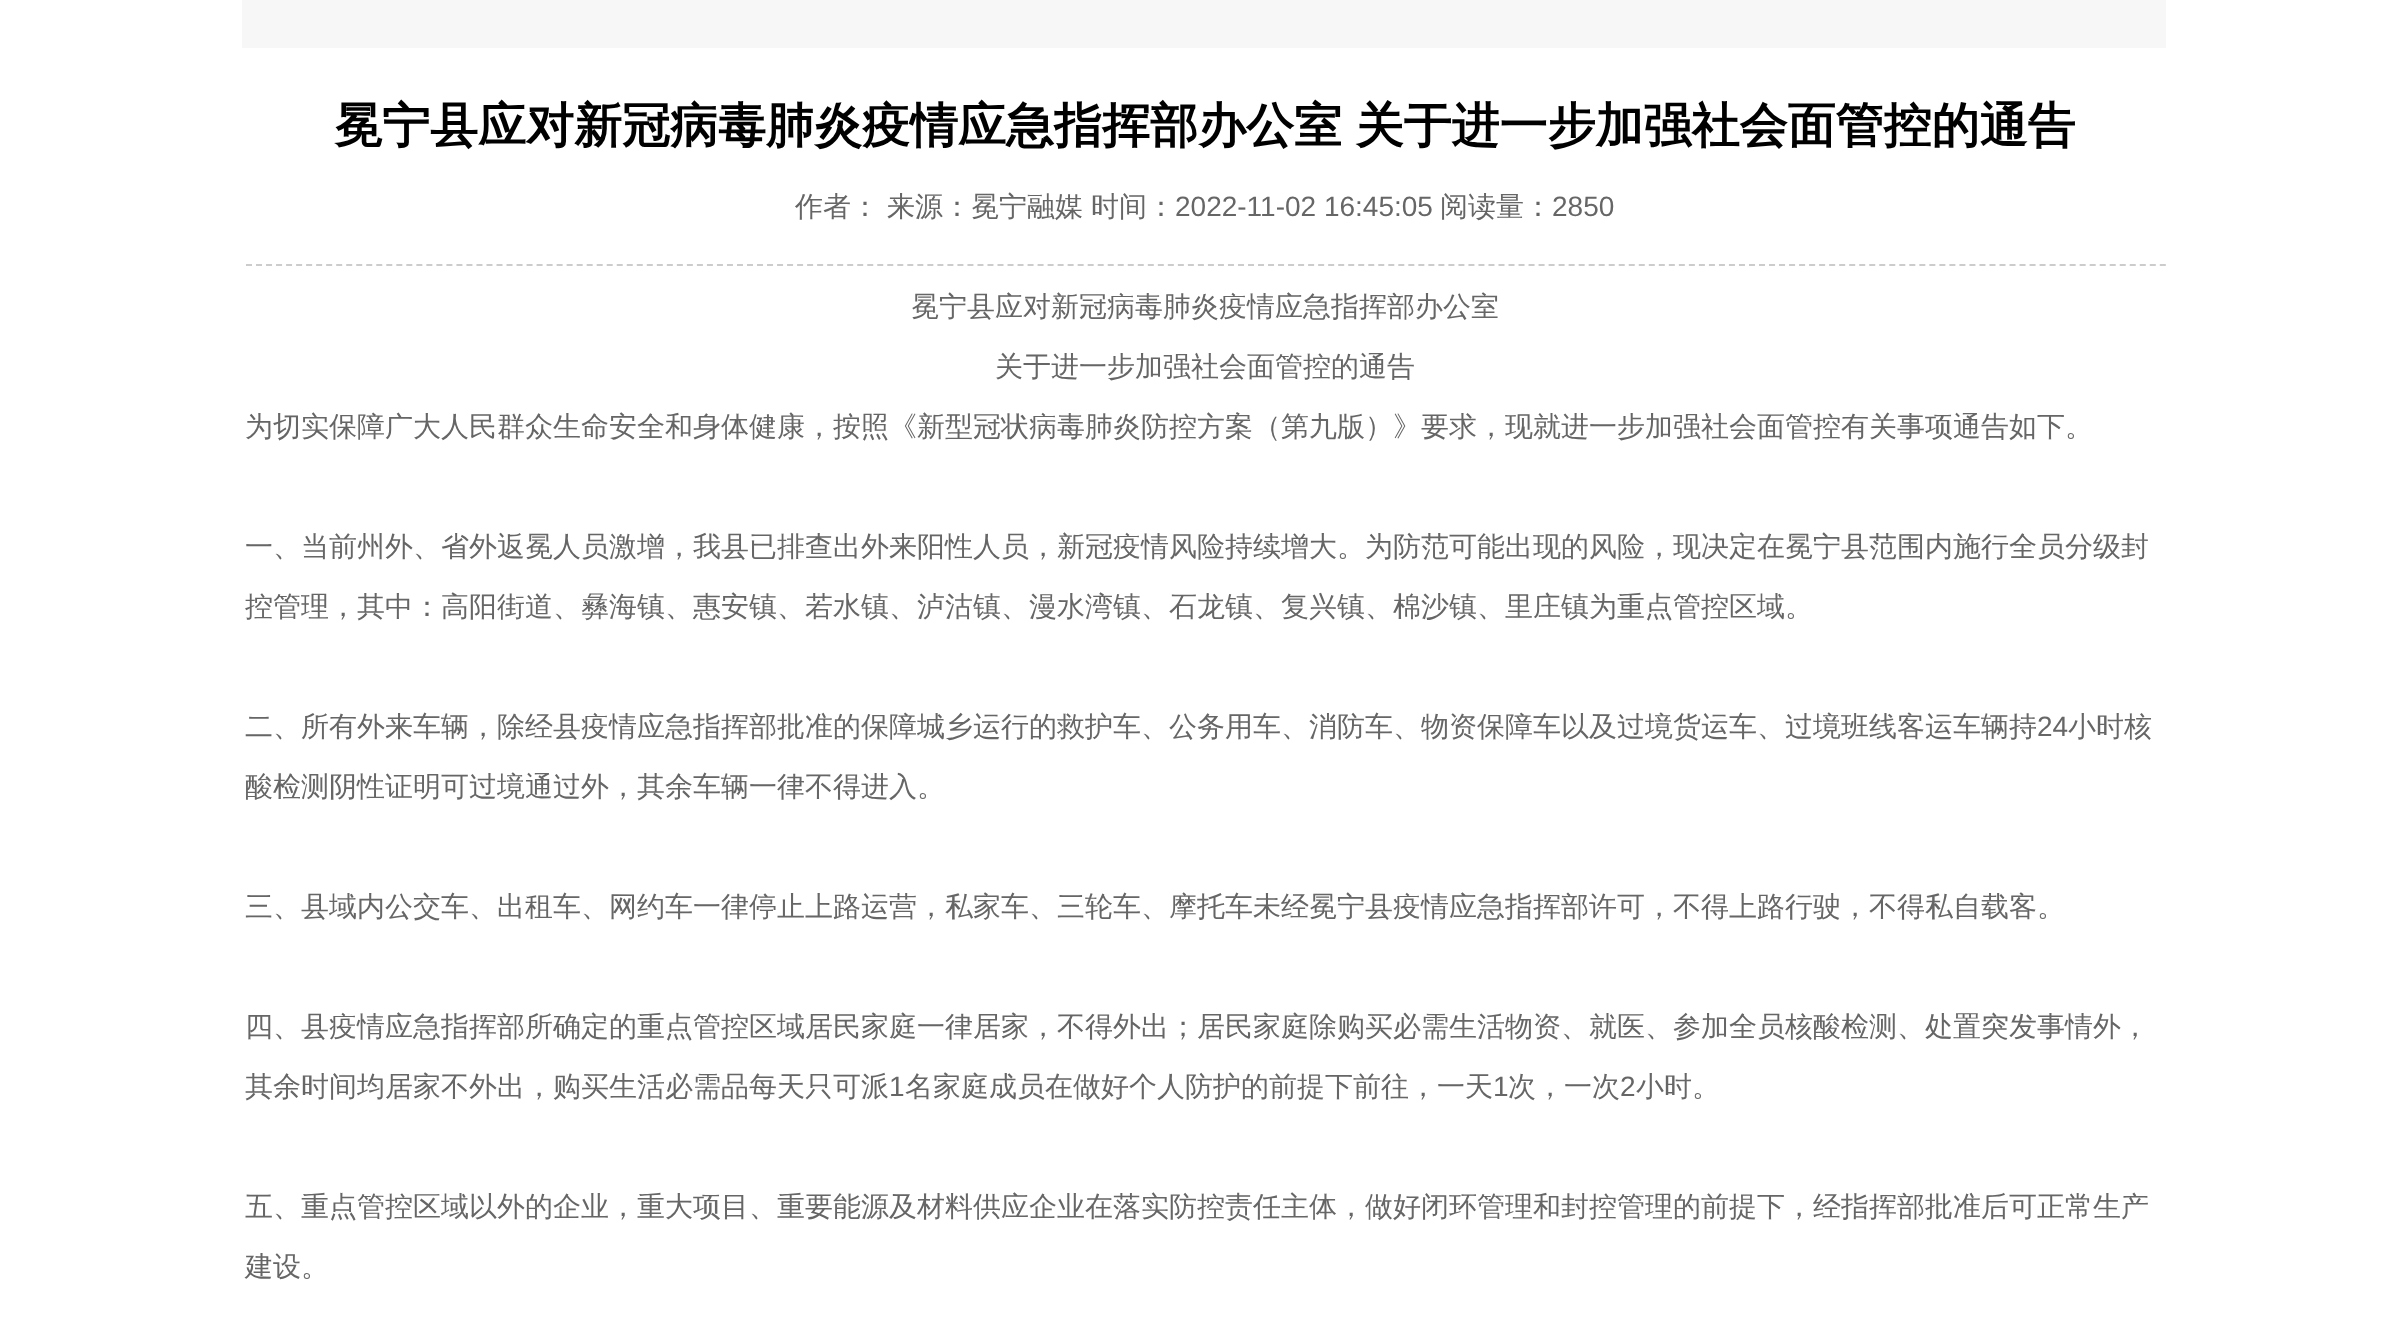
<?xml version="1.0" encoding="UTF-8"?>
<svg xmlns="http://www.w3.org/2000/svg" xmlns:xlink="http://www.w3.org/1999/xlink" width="2405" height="1334">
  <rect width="100%" height="100%" fill="#ffffff" />
  <rect x="242" width="1924" height="48" fill="#f7f7f7" />
  <path d="M 246 265 h 1920" fill="none" stroke="#cccccc" stroke-width="2" stroke-dasharray="6 4.02" />
  <text x="334" y="142" word-spacing="-1" style="font-family: WenQuanYi Zen Hei; font-size: 48px; font-weight: bold; fill: #000000">冕宁县应对新冠病毒肺炎疫情应急指挥部办公室 关于进一步加强社会面管控的通告</text>
  <text x="795" y="216" style="font-family: WenQuanYi Zen Hei; font-size: 28px; font-weight: 500; fill: #666666">作者：</text>
  <text x="887" y="216" style="font-family: WenQuanYi Zen Hei; font-size: 28px; font-weight: 500; fill: #666666">来源：冕宁融媒</text>
  <text x="1091" y="216" style="font-family: WenQuanYi Zen Hei; font-size: 28px; font-weight: 500; fill: #666666">时间：</text>
  <text x="1175" y="216" style="font-family: Liberation Sans; font-size: 28px; fill: #666666">2022-11-02 16:45:05</text>
  <text x="1440" y="216" style="font-family: WenQuanYi Zen Hei; font-size: 28px; font-weight: 500; fill: #666666">阅读量：</text>
  <text x="1552" y="216" style="font-family: Liberation Sans; font-size: 28px; fill: #666666">2850</text>
  <text x="911" y="316" style="font-family: WenQuanYi Zen Hei; font-size: 28px; font-weight: 500; fill: #666666">冕宁县应对新冠病毒肺炎疫情应急指挥部办公室</text>
  <text x="995" y="376" style="font-family: WenQuanYi Zen Hei; font-size: 28px; font-weight: 500; fill: #666666">关于进一步加强社会面管控的通告</text>
  <text x="245" y="436" style="font-family: WenQuanYi Zen Hei; font-size: 28px; font-weight: 500; fill: #666666">为切实保障广大人民群众生命安全和身体健康，按照《新型冠状病毒肺炎防控方案（第九版）》要求，现就进一步加强社会面管控有关事项通告如下。</text>
  <text x="245" y="556" style="font-family: WenQuanYi Zen Hei; font-size: 28px; font-weight: 500; fill: #666666">一、当前州外、省外返冕人员激增，我县已排查出外来阳性人员，新冠疫情风险持续增大。为防范可能出现的风险，现决定在冕宁县范围内施行全员分级封</text>
  <text x="245" y="616" style="font-family: WenQuanYi Zen Hei; font-size: 28px; font-weight: 500; fill: #666666">控管理，其中：高阳街道、彝海镇、惠安镇、若水镇、泸沽镇、漫水湾镇、石龙镇、复兴镇、棉沙镇、里庄镇为重点管控区域。</text>
  <text x="245" y="736" style="font-family: WenQuanYi Zen Hei; font-size: 28px; font-weight: 500; fill: #666666">二、所有外来车辆，除经县疫情应急指挥部批准的保障城乡运行的救护车、公务用车、消防车、物资保障车以及过境货运车、过境班线客运车辆持</text>
  <text x="2037" y="736" style="font-family: Liberation Sans; font-size: 28px; fill: #666666">24</text>
  <text x="2068" y="736" style="font-family: WenQuanYi Zen Hei; font-size: 28px; font-weight: 500; fill: #666666">小时核</text>
  <text x="245" y="796" style="font-family: WenQuanYi Zen Hei; font-size: 28px; font-weight: 500; fill: #666666">酸检测阴性证明可过境通过外，其余车辆一律不得进入。</text>
  <text x="245" y="916" style="font-family: WenQuanYi Zen Hei; font-size: 28px; font-weight: 500; fill: #666666">三、县域内公交车、出租车、网约车一律停止上路运营，私家车、三轮车、摩托车未经冕宁县疫情应急指挥部许可，不得上路行驶，不得私自载客。</text>
  <text x="245" y="1036" style="font-family: WenQuanYi Zen Hei; font-size: 28px; font-weight: 500; fill: #666666">四、县疫情应急指挥部所确定的重点管控区域居民家庭一律居家，不得外出；居民家庭除购买必需生活物资、就医、参加全员核酸检测、处置突发事情外，</text>
  <text x="245" y="1096" style="font-family: WenQuanYi Zen Hei; font-size: 28px; font-weight: 500; fill: #666666">其余时间均居家不外出，购买生活必需品每天只可派</text>
  <text x="889" y="1096" style="font-family: Liberation Sans; font-size: 28px; fill: #666666">1</text>
  <text x="905" y="1096" style="font-family: WenQuanYi Zen Hei; font-size: 28px; font-weight: 500; fill: #666666">名家庭成员在做好个人防护的前提下前往，一天</text>
  <text x="1493" y="1096" style="font-family: Liberation Sans; font-size: 28px; fill: #666666">1</text>
  <text x="1508" y="1096" style="font-family: WenQuanYi Zen Hei; font-size: 28px; font-weight: 500; fill: #666666">次，一次</text>
  <text x="1620" y="1096" style="font-family: Liberation Sans; font-size: 28px; fill: #666666">2</text>
  <text x="1636" y="1096" style="font-family: WenQuanYi Zen Hei; font-size: 28px; font-weight: 500; fill: #666666">小时。</text>
  <text x="245" y="1216" style="font-family: WenQuanYi Zen Hei; font-size: 28px; font-weight: 500; fill: #666666">五、重点管控区域以外的企业，重大项目、重要能源及材料供应企业在落实防控责任主体，做好闭环管理和封控管理的前提下，经指挥部批准后可正常生产</text>
  <text x="245" y="1276" style="font-family: WenQuanYi Zen Hei; font-size: 28px; font-weight: 500; fill: #666666">建设。</text>
</svg>
